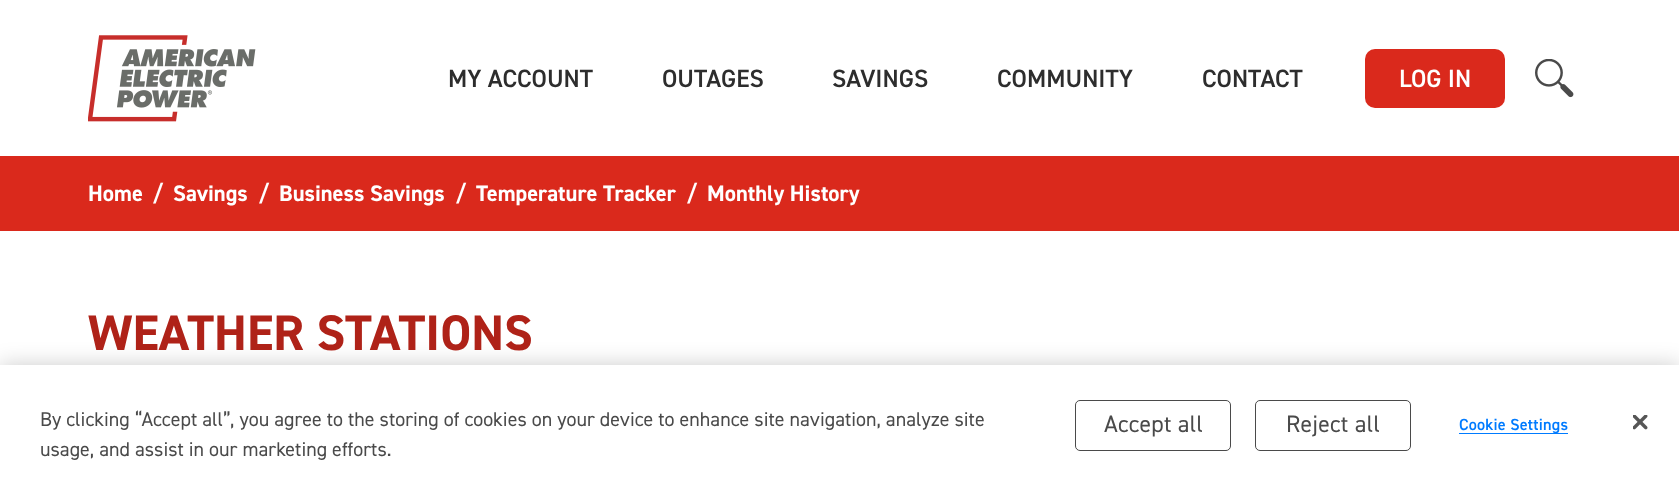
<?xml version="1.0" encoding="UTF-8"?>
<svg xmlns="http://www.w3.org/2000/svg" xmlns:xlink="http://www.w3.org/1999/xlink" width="1679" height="485">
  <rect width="100%" height="100%" fill="#ffffff" />
  <image x="88" y="35" width="168" height="87" xlink:href="image1.png" />
  <rect x="1365" y="49" width="140" height="59" rx="10" fill="#da291c" />
  <image x="1535" y="59" width="39" height="39" xlink:href="image2.png" />
  <rect y="156" width="1679" height="75" fill="#da291c" />
  <rect y="365" width="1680" height="120" fill="#000000" fill-opacity="0.2" filter="blur(11px)" />
  <rect y="365" width="1679" height="120" fill="#ffffff" />
  <rect x="1075.5" y="400.5" width="155" height="50" rx="4.5" fill="none" stroke="#4a4a4a" />
  <rect x="1255.5" y="400.5" width="155" height="50" rx="4.5" fill="none" stroke="#4a4a4a" />
  <rect x="1459" y="433" width="109" height="1" fill="#007bff" />
  <image x="1633" y="415" width="15" height="15" xlink:href="image3.png" />
  <text x="448" y="87" style="font-family: 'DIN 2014'; font-size: 25px; font-weight: 600; fill: #2d2d2d">MY ACCOUNT</text>
  <text x="662" y="87" style="font-family: 'DIN 2014'; font-size: 25px; font-weight: 600; fill: #2d2d2d">OUTAGES</text>
  <text x="832" y="87" style="font-family: 'DIN 2014'; font-size: 25px; font-weight: 600; fill: #2d2d2d">SAVINGS</text>
  <text x="997" y="87" style="font-family: 'DIN 2014'; font-size: 25px; font-weight: 600; fill: #2d2d2d">COMMUNITY</text>
  <text x="1202" y="87" style="font-family: 'DIN 2014'; font-size: 25px; font-weight: 600; fill: #2d2d2d">CONTACT</text>
  <text x="1399" y="87" style="font-family: 'DIN 2014'; font-size: 25px; font-weight: 600; fill: #ffffff">LOG IN</text>
  <text x="88" y="201" style="font-family: 'DIN 2014'; font-size: 22.5px; font-weight: bold; fill: #ffffff">Home</text>
  <text x="152" y="201" style="font-family: 'DIN 2014'; font-size: 22.5px; font-weight: bold; fill: #ffffff">/</text>
  <text x="173" y="201" style="font-family: 'DIN 2014'; font-size: 22.5px; font-weight: bold; fill: #ffffff">Savings</text>
  <text x="258" y="201" style="font-family: 'DIN 2014'; font-size: 22.5px; font-weight: bold; fill: #ffffff">/</text>
  <text x="279" y="201" style="font-family: 'DIN 2014'; font-size: 22.5px; font-weight: bold; fill: #ffffff">Business Savings</text>
  <text x="455" y="201" style="font-family: 'DIN 2014'; font-size: 22.5px; font-weight: bold; fill: #ffffff">/</text>
  <text x="476" y="201" style="font-family: 'DIN 2014'; font-size: 22.5px; font-weight: bold; fill: #ffffff">Temperature Tracker</text>
  <text x="686" y="201" style="font-family: 'DIN 2014'; font-size: 22.5px; font-weight: bold; fill: #ffffff">/</text>
  <text x="707" y="201" style="font-family: 'DIN 2014'; font-size: 22.5px; font-weight: bold; fill: #ffffff">Monthly History</text>
  <text x="88" y="350" style="font-family: 'DIN 2014'; font-size: 50px; font-weight: bold; fill: #af2218">WEATHER STATIONS</text>
  <text x="40" y="426" style="font-family: 'DIN 2014'; font-size: 20px; fill: #4a4a4a">By clicking “Accept all”, you agree to the storing of cookies on your device to enhance site navigation, analyze site</text>
  <text x="40" y="456" style="font-family: 'DIN 2014'; font-size: 20px; fill: #4a4a4a">usage, and assist in our marketing efforts.</text>
  <text x="1104" y="432" style="font-family: 'DIN 2014'; font-size: 23.75px; letter-spacing: 0.25px; fill: #4a4a4a">Accept all</text>
  <text x="1286" y="432" style="font-family: 'DIN 2014'; font-size: 23.75px; letter-spacing: 0.25px; fill: #4a4a4a">Reject all</text>
  <text x="1459" y="430" style="font-family: 'DIN 2014'; font-size: 16.25px; font-weight: 600; letter-spacing: 0.2px; fill: #007bff">Cookie Settings</text>
</svg>
